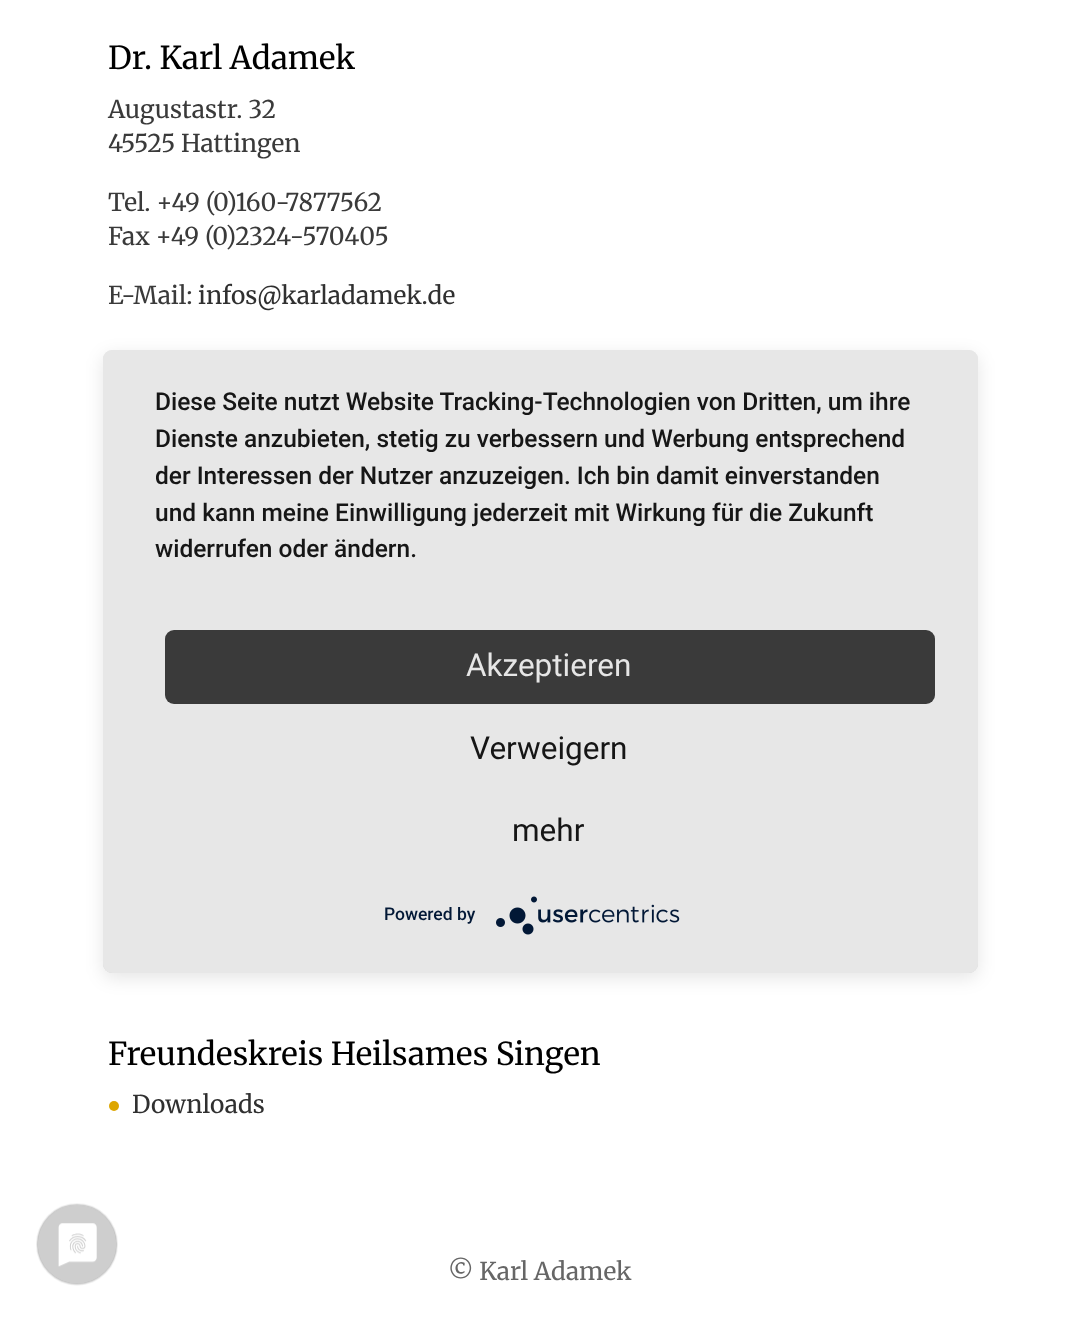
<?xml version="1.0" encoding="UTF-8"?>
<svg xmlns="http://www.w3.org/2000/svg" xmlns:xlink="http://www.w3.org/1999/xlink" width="1079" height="1320">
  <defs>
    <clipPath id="clip1"><rect x="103" y="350" width="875" height="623" rx="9" /></clipPath>
    <clipPath id="clip2"><rect x="156" y="385" width="770" height="219" /></clipPath>
  </defs>
  <rect width="100%" height="100%" fill="#ffffff" />
  <circle cx="114" cy="1106" r="5" fill="#dda600" />
  <rect x="103" y="355" width="875" height="623" rx="9" fill="#000000" fill-opacity="0.1" filter="blur(9px)" />
  <g clip-path="url(#clip1)">
    <rect x="103" y="361" width="875" height="623" fill="#000000" fill-opacity="0.3" filter="blur(31.5px)" />
  </g>
  <rect x="103" y="350" width="875" height="623" rx="9" fill="#e7e7e7" />
  <rect x="165" y="630" width="770" height="74" rx="9" fill="#3a3a3a" />
  <image x="496" y="896" width="184" height="39" xlink:href="image1.png" />
  <image x="36" y="1203" width="82" height="83" xlink:href="image2.png" />
  <text x="108" y="69" style="font-family: Merriweather; font-size: 31.5px; fill: #000000">Dr. Karl Adamek</text>
  <text x="108" y="118" style="font-family: Merriweather; font-size: 24.5px; fill: #3a3a3a">Augustastr. 32</text>
  <text x="108" y="152" style="font-family: Merriweather; font-size: 24.5px; fill: #3a3a3a">45525 Hattingen</text>
  <text x="108" y="211" style="font-family: Merriweather; font-size: 24.5px; fill: #3a3a3a">Tel. +49 (0)160-7877562</text>
  <text x="108" y="245" style="font-family: Merriweather; font-size: 24.5px; fill: #3a3a3a">Fax +49 (0)2324-570405</text>
  <text x="108" y="304" style="font-family: Merriweather; font-size: 24.5px; fill: #3a3a3a">E-Mail:</text>
  <text x="198" y="304" style="font-family: Merriweather; font-size: 24.5px; fill: #303030">infos@karladamek.de</text>
  <text x="108" y="1065" style="font-family: Merriweather; font-size: 31.5px; fill: #000000">Freundeskreis Heilsames Singen</text>
  <text x="132" y="1113" style="font-family: Merriweather; font-size: 24.5px; fill: #303030">Downloads</text>
  <text x="448" y="1280" style="font-family: Merriweather; font-size: 24.5px; fill: #666666">© Karl Adamek</text>
  <text x="155" y="410" style="font-family: Roboto; font-size: 24.5px; font-weight: 500; fill: #161616">Diese Seite nutzt Website Tracking-Technologien von Dritten, um ihre</text>
  <text x="155" y="447" style="font-family: Roboto; font-size: 24.5px; font-weight: 500; fill: #161616">Dienste anzubieten, stetig zu verbessern und Werbung entsprechend</text>
  <g clip-path="url(#clip2)">
    <text x="155" y="484" style="font-family: Roboto; font-size: 24.5px; font-weight: 500; fill: #161616">der Interessen der Nutzer anzuzeigen. Ich bin damit einverstanden</text>
  </g>
  <text x="155" y="521" style="font-family: Roboto; font-size: 24.5px; font-weight: 500; fill: #161616">und kann meine Einwilligung jederzeit mit Wirkung für die Zukunft</text>
  <text x="155" y="557" style="font-family: Roboto; font-size: 24.5px; font-weight: 500; fill: #161616">widerrufen oder ändern.</text>
  <text x="466" y="676" style="font-family: Roboto; font-size: 31.5px; fill: #e6e6e6">Akzeptieren</text>
  <text x="470" y="759" style="font-family: Roboto; font-size: 31.5px; fill: #161616">Verweigern</text>
  <text x="512" y="841" style="font-family: Roboto; font-size: 31.5px; fill: #161616">mehr</text>
  <text x="384" y="920" style="font-family: Roboto; font-size: 17.5px; font-weight: 500; fill: #021836">Powered by</text>
</svg>
